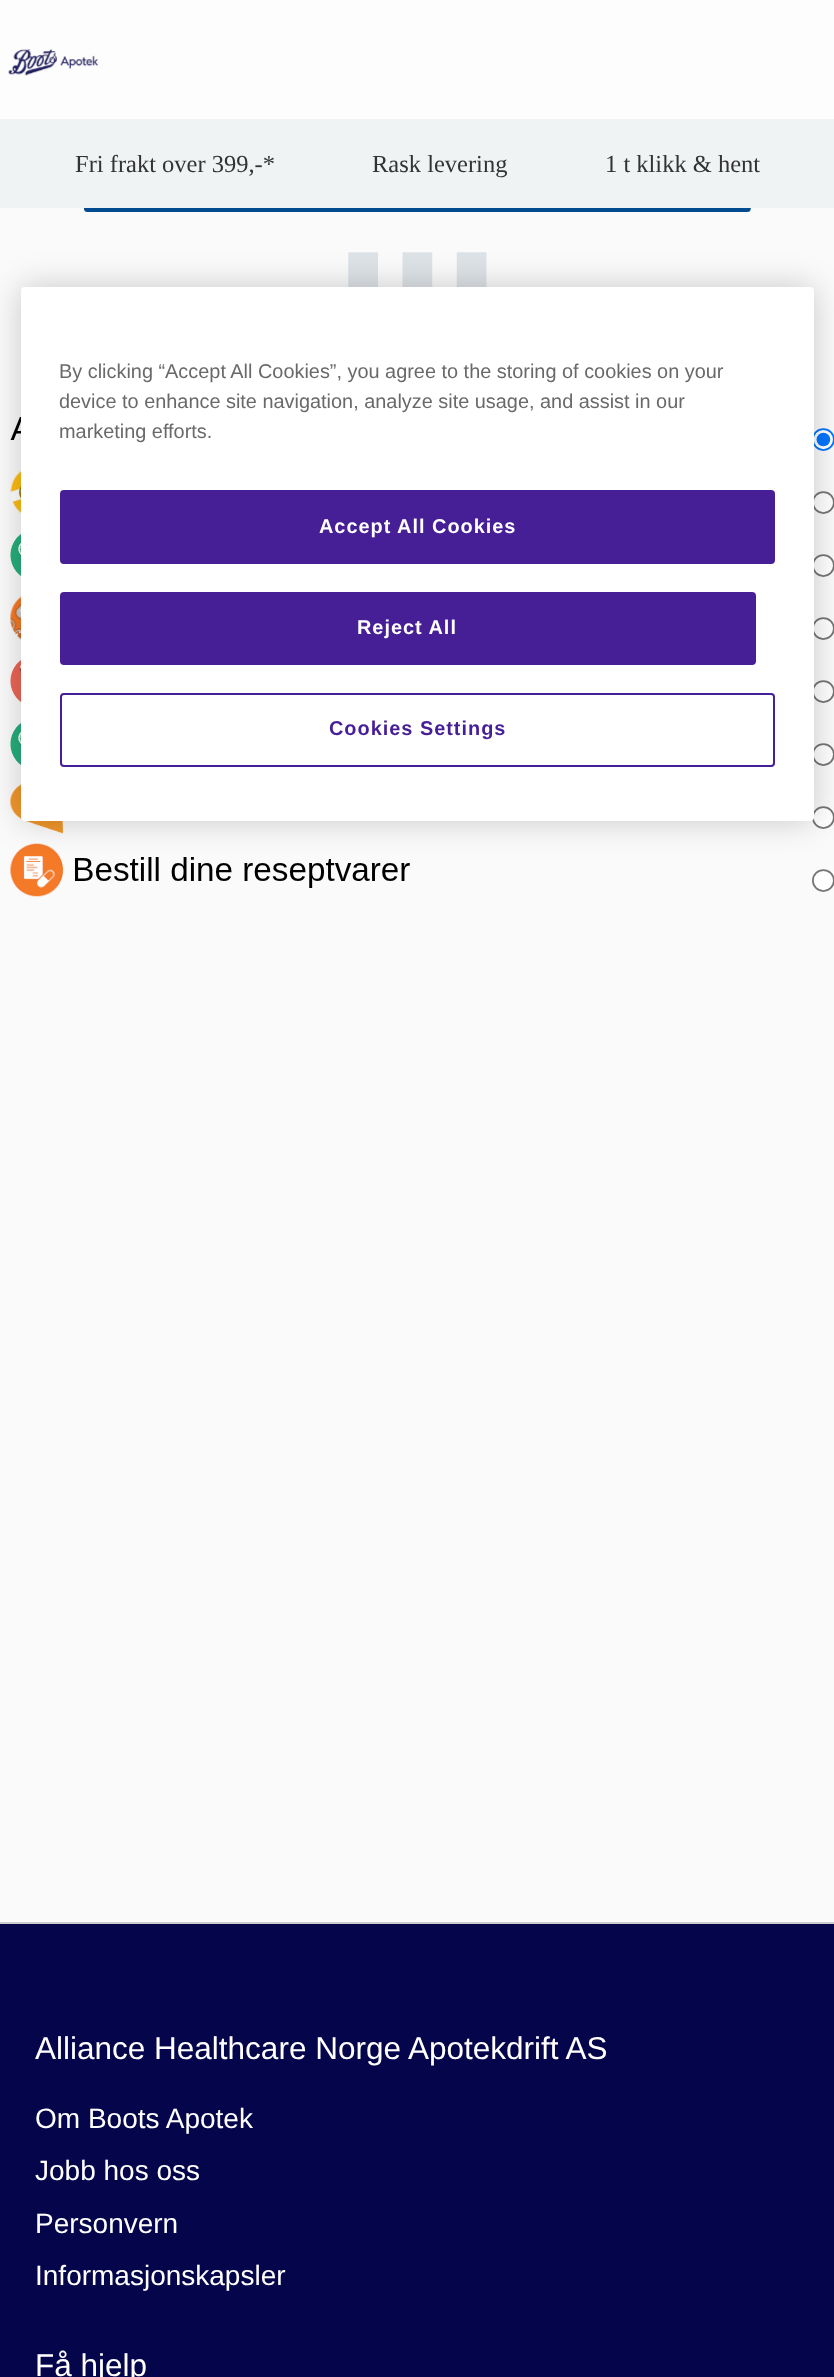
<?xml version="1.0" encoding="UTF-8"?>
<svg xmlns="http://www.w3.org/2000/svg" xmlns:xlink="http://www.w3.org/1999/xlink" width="834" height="2377">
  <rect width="100%" height="100%" fill="#fafafa" />
  <rect width="834" height="119" fill="#fdfdfd" />
  <image x="8" y="49" width="90" height="27" xlink:href="image1.png" />
  <rect y="119" width="834" height="89" fill="#eff3f3" />
  <image x="10" y="208" width="824" height="689" xlink:href="image2.png" />
  <rect x="21" y="287" width="793" height="534" rx="4" fill="#000000" fill-opacity="0.2" filter="blur(16px)" />
  <rect x="21" y="287" width="793" height="534" rx="4" fill="#ffffff" />
  <rect x="61" y="491" width="713" height="72" rx="3" fill="#461e96" stroke="#461e96" stroke-width="2" />
  <rect x="61" y="593" width="694" height="71" rx="3" fill="#461e96" stroke="#461e96" stroke-width="2" />
  <rect x="61" y="694" width="713" height="72" rx="3" fill="none" stroke="#461e96" stroke-width="2" />
  <rect y="1924" width="834" height="453" fill="#05054b" />
  <rect y="1922" width="834" height="2" fill="#cecece" />
  <text x="75" y="172" style="font-family: Liberation Serif; font-size: 24.5px; fill: #333333">Fri frakt over 399,-*</text>
  <text x="372" y="172" style="font-family: Liberation Serif; font-size: 24.5px; fill: #333333">Rask levering</text>
  <text x="605" y="172" style="font-family: Liberation Serif; font-size: 24.5px; fill: #333333">1 t klikk &amp; hent</text>
  <text x="59" y="378" style="font-family: Liberation Sans; font-size: 19.9px; fill: #696969">By clicking “Accept All Cookies”, you agree to the storing of cookies on your</text>
  <text x="59" y="408" style="font-family: Liberation Sans; font-size: 19.9px; fill: #696969">device to enhance site navigation, analyze site usage, and assist in our</text>
  <text x="59" y="438" style="font-family: Liberation Sans; font-size: 19.9px; fill: #696969">marketing efforts.</text>
  <text x="319" y="533" style="font-family: Liberation Sans; font-size: 19.9px; font-weight: bold; letter-spacing: 1px; fill: #ffffff">Accept All Cookies</text>
  <text x="357" y="634" style="font-family: Liberation Sans; font-size: 19.9px; font-weight: bold; letter-spacing: 1px; fill: #ffffff">Reject All</text>
  <text x="329" y="735" style="font-family: Liberation Sans; font-size: 19.9px; font-weight: bold; letter-spacing: 1px; fill: #461e96">Cookies Settings</text>
  <text x="35" y="2059" style="font-family: Liberation Sans; font-size: 31.5px; fill: #ffffff">Alliance Healthcare Norge Apotekdrift AS</text>
  <text x="35" y="2128" style="font-family: Liberation Sans; font-size: 28px; fill: #ffffff">Om Boots Apotek</text>
  <text x="35" y="2180" style="font-family: Liberation Sans; font-size: 28px; fill: #ffffff">Jobb hos oss</text>
  <text x="35" y="2233" style="font-family: Liberation Sans; font-size: 28px; fill: #ffffff">Personvern</text>
  <text x="35" y="2285" style="font-family: Liberation Sans; font-size: 28px; fill: #ffffff">Informasjonskapsler</text>
  <text x="35" y="2376" style="font-family: Liberation Sans; font-size: 31.5px; fill: #ffffff">Få hjelp</text>
</svg>
